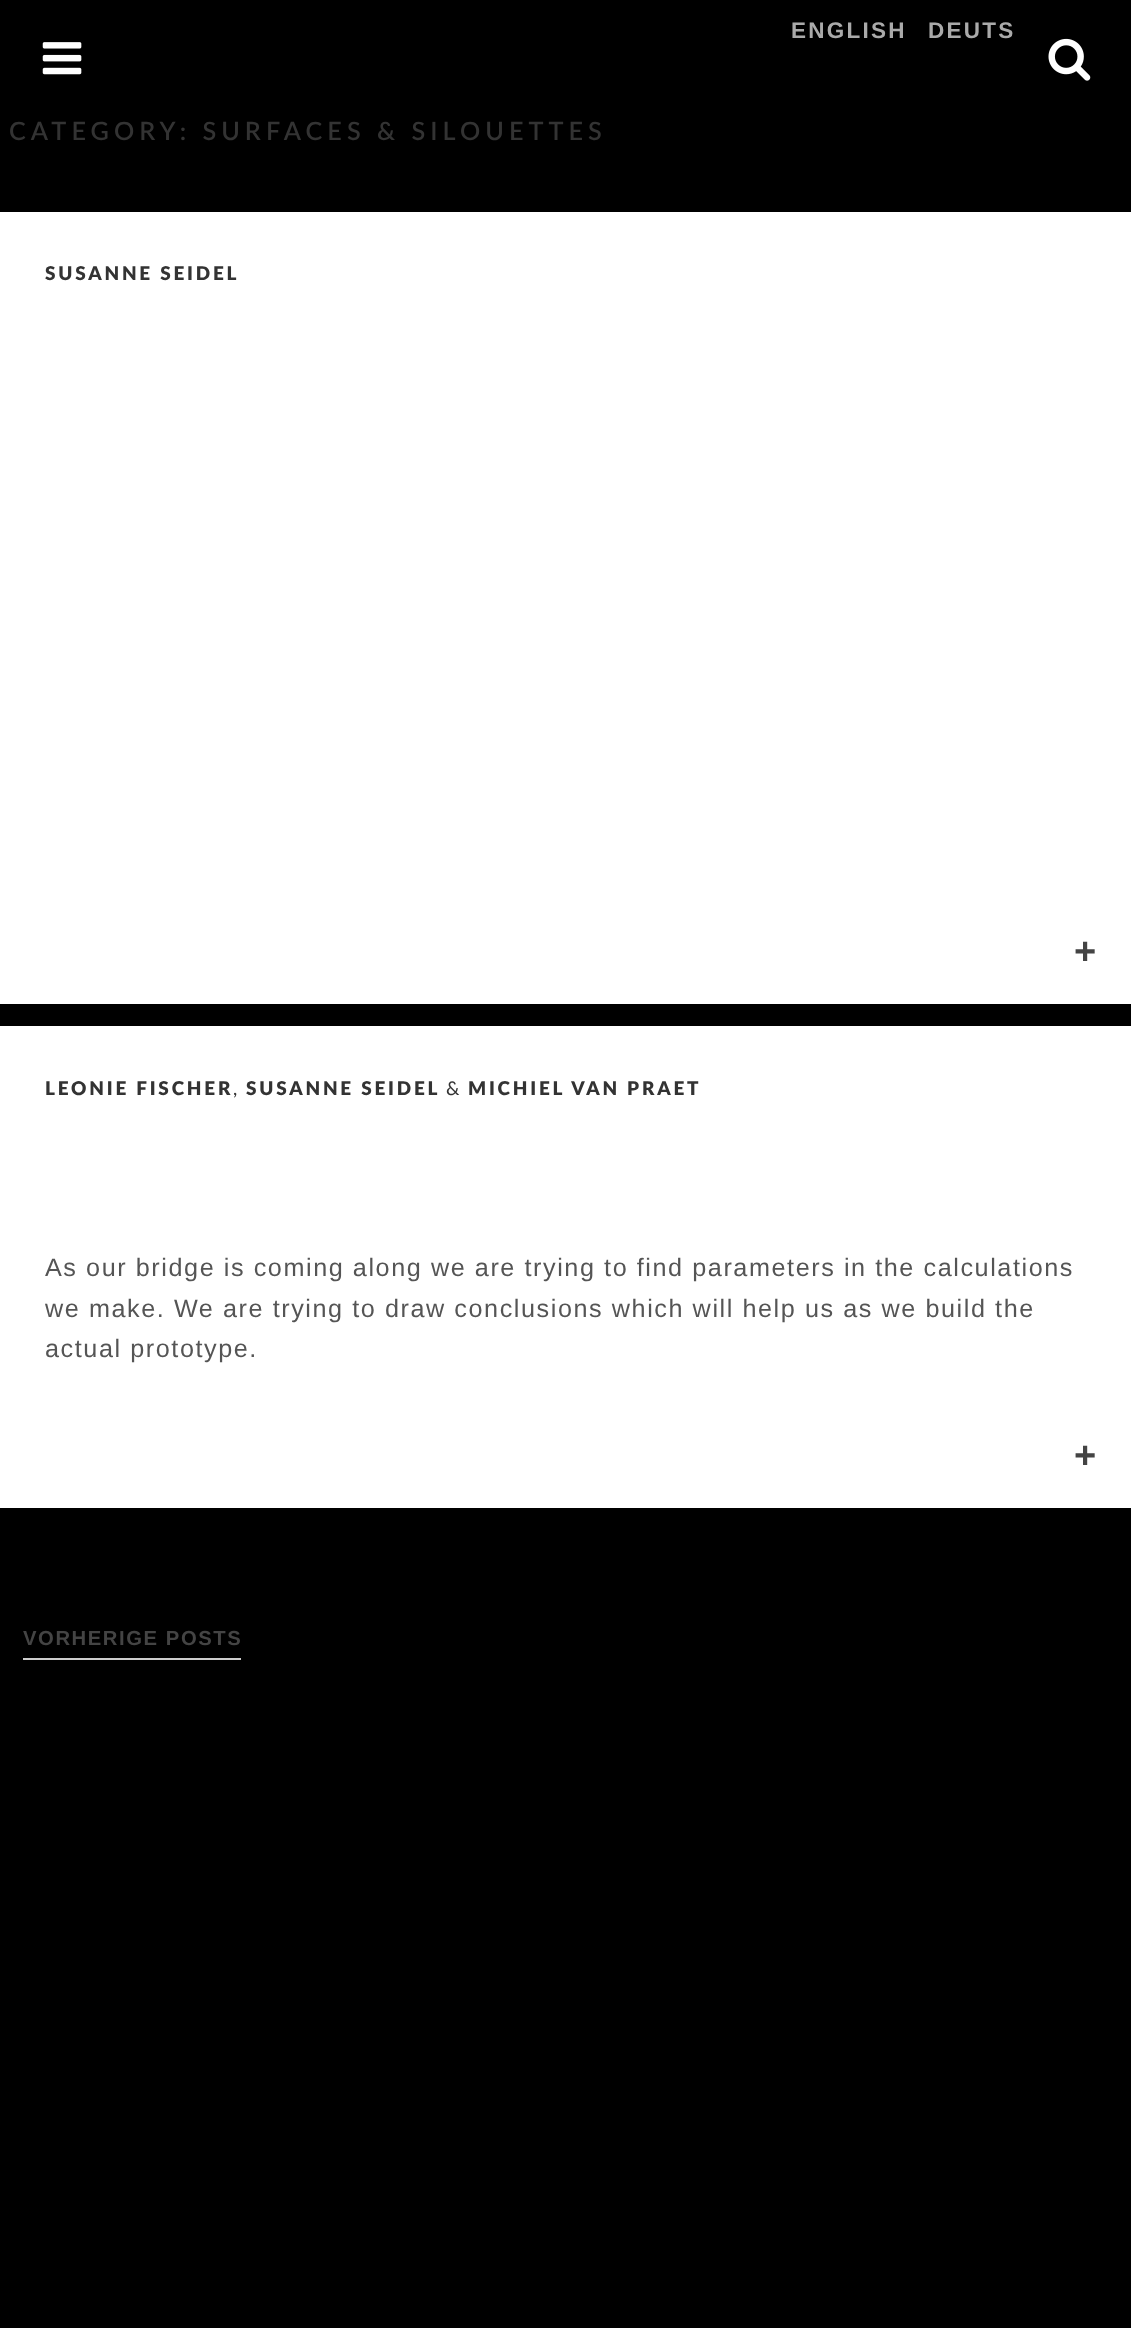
<?xml version="1.0" encoding="UTF-8"?>
<svg xmlns="http://www.w3.org/2000/svg" xmlns:xlink="http://www.w3.org/1999/xlink" width="1131" height="2328">
  <rect width="100%" height="100%" fill="#000000" />
  <image x="42" y="42" width="40" height="33" xlink:href="image1.png" />
  <image x="1048" y="38" width="43" height="43" xlink:href="image2.png" />
  <rect y="212" width="1131" height="792" fill="#ffffff" />
  <rect y="1026" width="1131" height="482" fill="#ffffff" />
  <rect x="23" y="1658" width="218" height="2" fill="#cccccc" />
  <text x="791" y="38" style="font-family: Liberation Sans; font-size: 22.5px; font-weight: bold; letter-spacing: 2.25px; fill: #aaaaaa">ENGLISH</text>
  <text x="928" y="38" style="font-family: Liberation Sans; font-size: 22.5px; font-weight: bold; letter-spacing: 2.25px; fill: #aaaaaa">DEUTS</text>
  <text x="9" y="140" style="font-family: Lato; font-size: 25.2px; font-weight: 600; letter-spacing: 5.05px; fill: #333333">CATEGORY: SURFACES &amp; SILOUETTES</text>
  <text x="45" y="280" style="font-family: Lato; font-size: 18.9px; font-weight: 800; letter-spacing: 2.8px; fill: #333333">SUSANNE SEIDEL</text>
  <text x="1074" y="964" style="font-family: Liberation Sans; font-size: 38px; font-weight: bold; letter-spacing: 1.57px; fill: #444444">+</text>
  <text x="45" y="1095" style="font-family: Lato; font-size: 18.9px; font-weight: 800; letter-spacing: 2.8px; fill: #333333">LEONIE FISCHER</text>
  <text x="233" y="1095" style="font-family: Lato; font-size: 18.9px; letter-spacing: 1.57px; fill: #333333">,</text>
  <text x="246" y="1095" style="font-family: Lato; font-size: 18.9px; font-weight: 800; letter-spacing: 2.8px; fill: #333333">SUSANNE SEIDEL</text>
  <text x="446" y="1095" style="font-family: Lato; font-size: 18.9px; letter-spacing: 1.57px; fill: #333333">&amp;</text>
  <text x="468" y="1095" style="font-family: Lato; font-size: 18.9px; font-weight: 800; letter-spacing: 2.8px; fill: #333333">MICHIEL VAN PRAET</text>
  <text x="1074" y="1468" style="font-family: Liberation Sans; font-size: 38px; font-weight: bold; letter-spacing: 1.57px; fill: #444444">+</text>
  <text x="45" y="1276" style="font-family: Liberation Sans; font-size: 25.2px; letter-spacing: 1.57px; fill: #555555">As our bridge is coming along we are trying to find parameters in the calculations</text>
  <text x="45" y="1317" style="font-family: Liberation Sans; font-size: 25.2px; letter-spacing: 1.57px; fill: #555555">we make. We are trying to draw conclusions which will help us as we build the</text>
  <text x="45" y="1357" style="font-family: Liberation Sans; font-size: 25.2px; letter-spacing: 1.57px; fill: #555555">actual prototype.</text>
  <text x="23" y="1645" style="font-family: Liberation Sans; font-size: 20.25px; font-weight: bold; letter-spacing: 1.57px; fill: #444444">VORHERIGE POSTS</text>
</svg>
